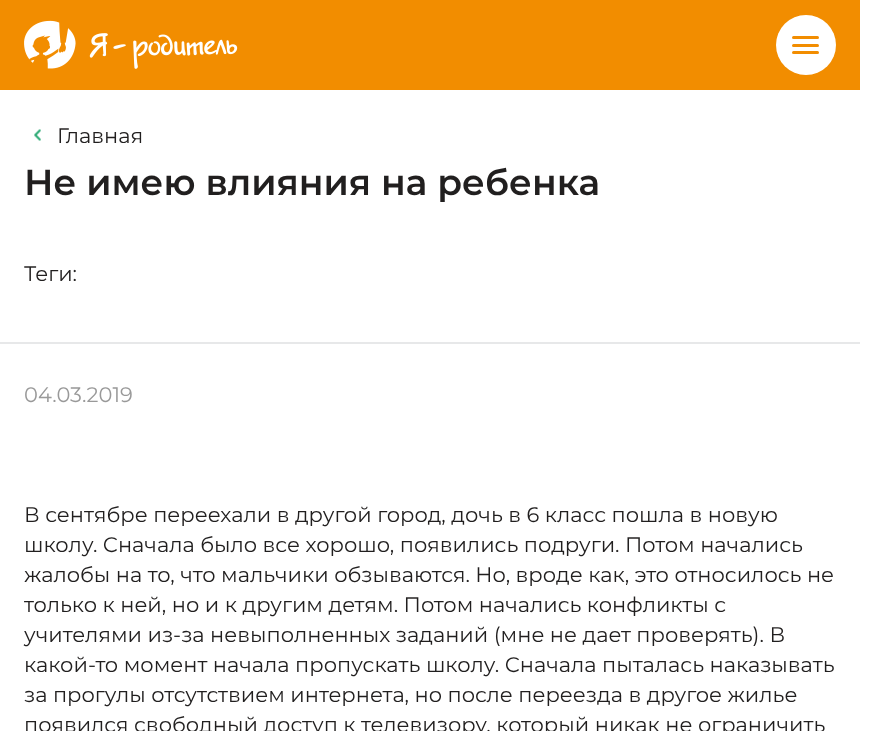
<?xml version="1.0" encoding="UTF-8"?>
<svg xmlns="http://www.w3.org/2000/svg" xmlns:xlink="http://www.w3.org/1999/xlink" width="881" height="731">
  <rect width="100%" height="100%" fill="#ffffff" />
  <rect width="860" height="90" fill="#f28d00" />
  <image x="24" y="20" width="214" height="49" xlink:href="image1.png" />
  <circle cx="806" cy="45" r="30" fill="#ffffff" />
  <rect x="792" y="36" width="27" height="3" rx="1.5" fill="#f28d00" />
  <rect x="792" y="44" width="27" height="3" rx="1.5" fill="#f28d00" />
  <rect x="792" y="51" width="27" height="3" rx="1.5" fill="#f28d00" />
  <image x="34" y="129" width="7" height="12" xlink:href="image2.png" />
  <rect y="342" width="860" height="2" fill="#e7e8e9" />
  <text x="57" y="143" style="font-family: Montserrat; font-size: 21px; fill: #211f1f">Главная</text>
  <text x="24" y="195" style="font-family: Montserrat; font-size: 36px; font-weight: 600; fill: #211f1f">Не имею влияния на ребенка</text>
  <text x="24" y="281" style="font-family: Montserrat; font-size: 21px; fill: #211f1f">Теги:</text>
  <text x="24" y="402" style="font-family: Montserrat; font-size: 21px; fill: #999999">04.03.2019</text>
  <text x="24" y="522" style="font-family: Montserrat; font-size: 21px; fill: #211f1f">В сентябре переехали в другой город, дочь в 6 класс пошла в новую</text>
  <text x="24" y="552" style="font-family: Montserrat; font-size: 21px; fill: #211f1f">школу. Сначала было все хорошо, появились подруги. Потом начались</text>
  <text x="24" y="582" style="font-family: Montserrat; font-size: 21px; fill: #211f1f">жалобы на то, что мальчики обзываются. Но, вроде как, это относилось не</text>
  <text x="24" y="612" style="font-family: Montserrat; font-size: 21px; fill: #211f1f">только к ней, но и к другим детям. Потом начались конфликты с</text>
  <text x="24" y="642" style="font-family: Montserrat; font-size: 21px; fill: #211f1f">учителями из-за невыполненных заданий (мне не дает проверять). В</text>
  <text x="24" y="672" style="font-family: Montserrat; font-size: 21px; fill: #211f1f">какой-то момент начала пропускать школу. Сначала пыталась наказывать</text>
  <text x="24" y="702" style="font-family: Montserrat; font-size: 21px; fill: #211f1f">за прогулы отсутствием интернета, но после переезда в другое жилье</text>
  <text x="24" y="732" style="font-family: Montserrat; font-size: 21px; fill: #211f1f">появился свободный доступ к телевизору, который никак не ограничить</text>
</svg>
